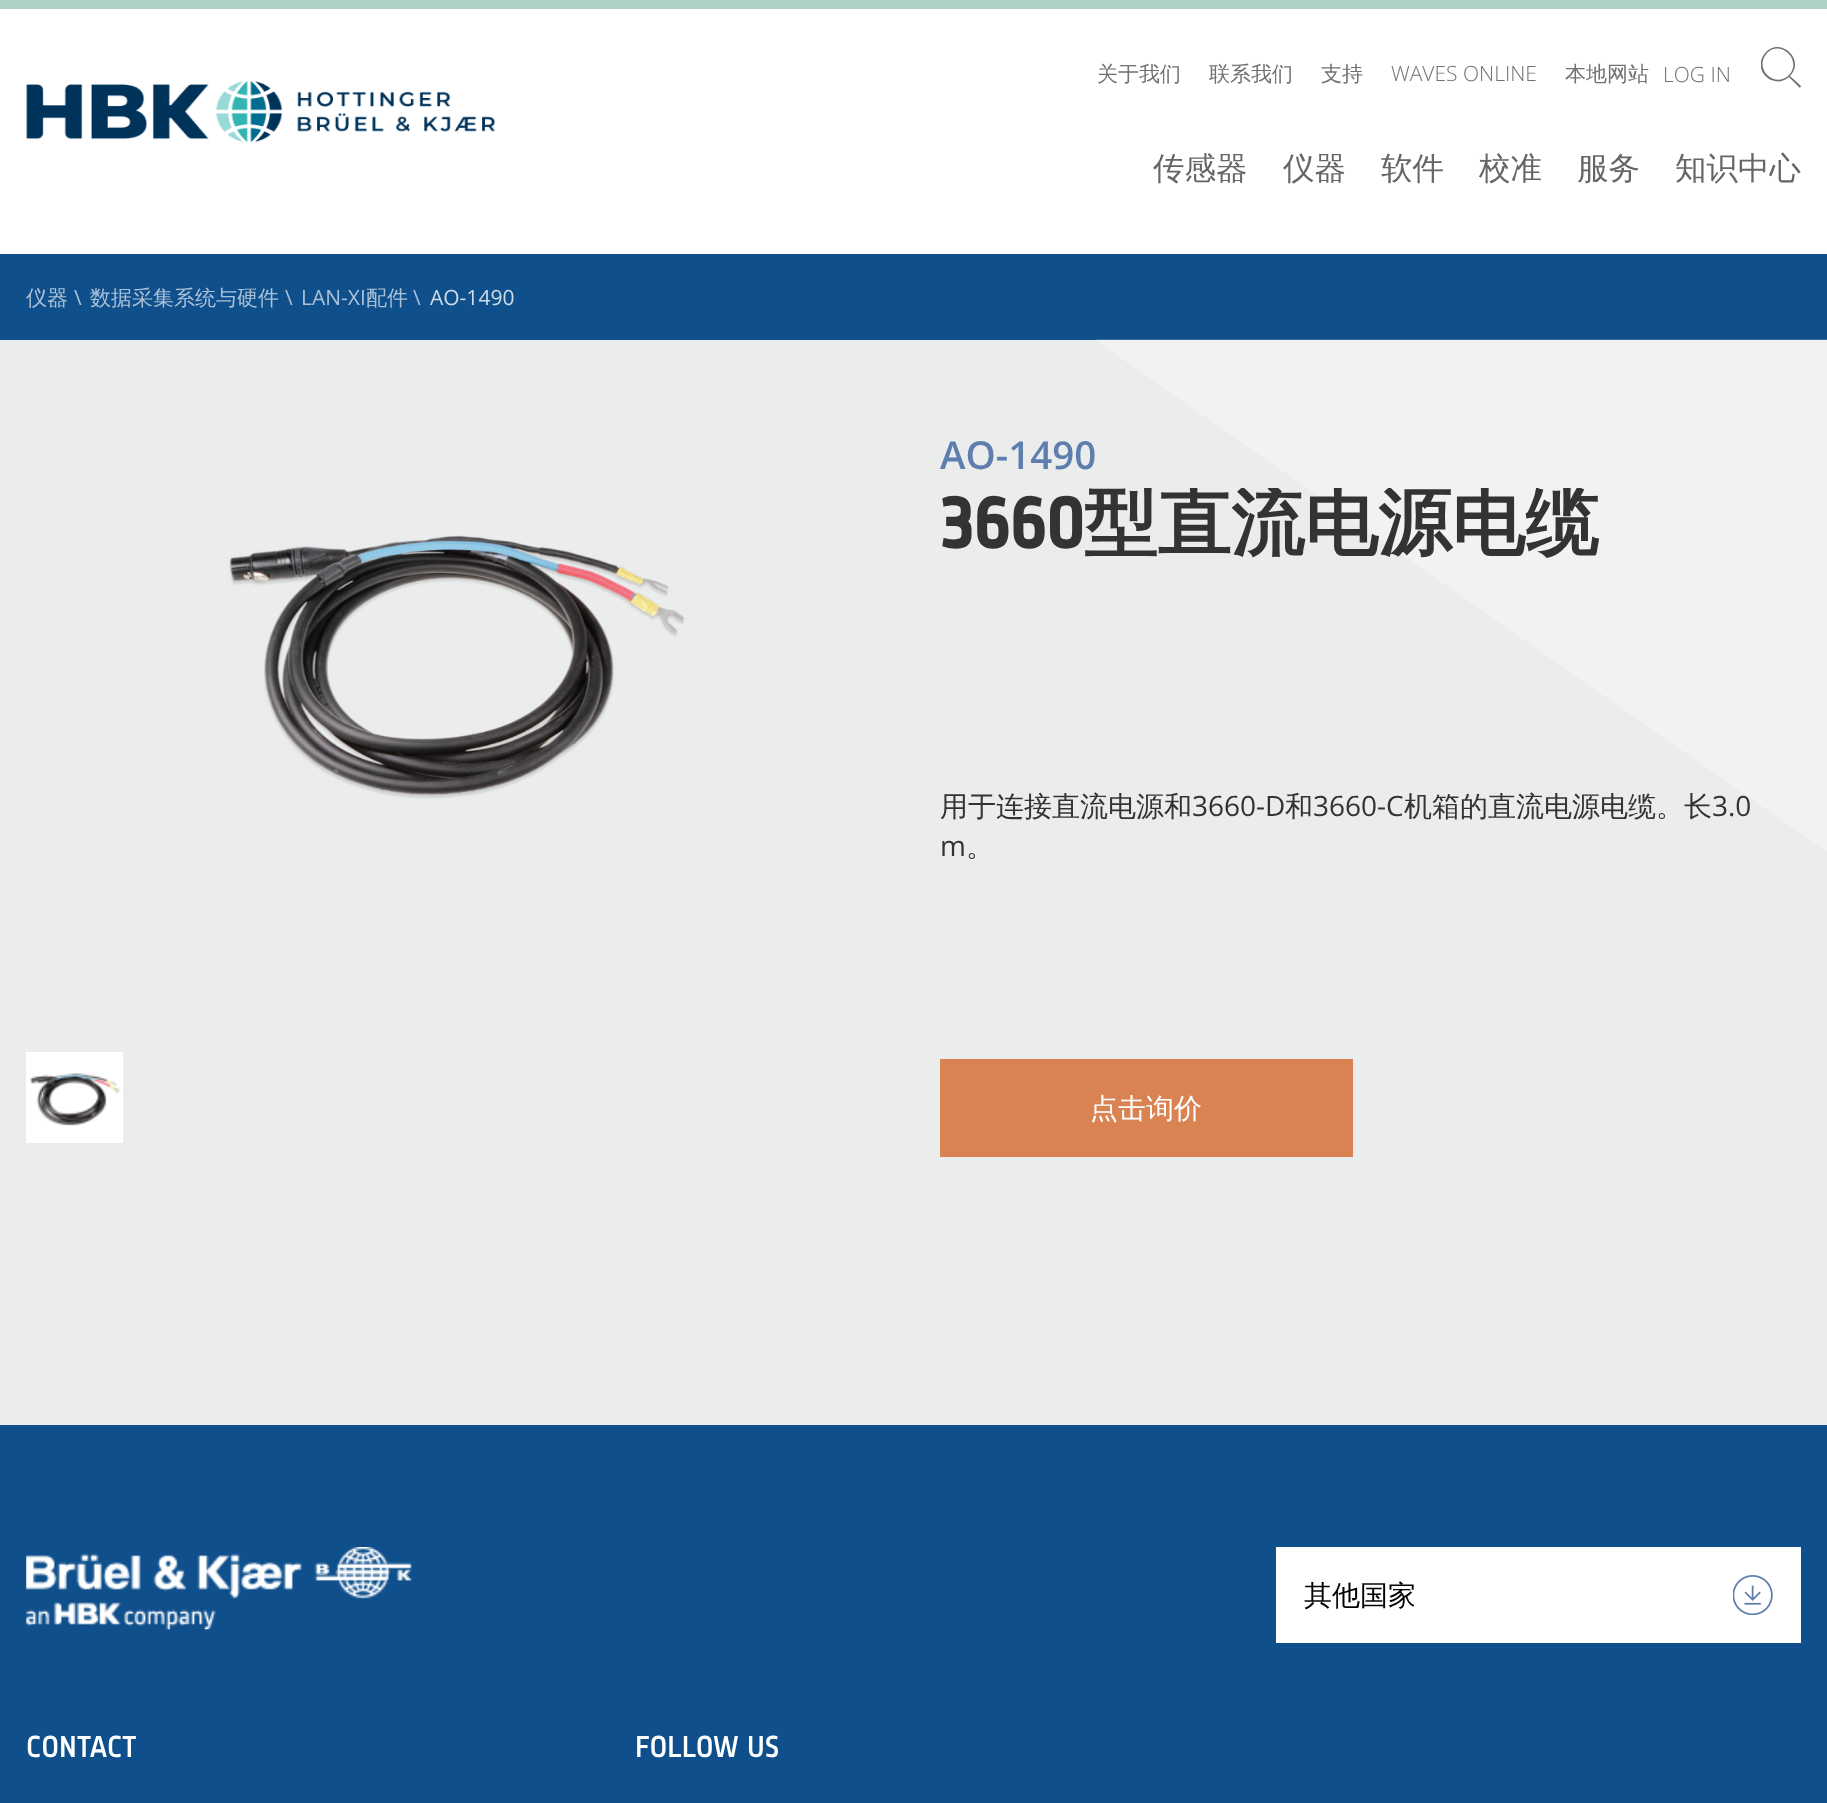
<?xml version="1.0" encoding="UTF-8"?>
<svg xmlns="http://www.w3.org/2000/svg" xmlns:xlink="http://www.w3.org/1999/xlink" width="1827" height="1803">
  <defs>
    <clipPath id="clip1"><rect x="1761" y="47" width="40" height="41" /></clipPath>
    <clipPath id="clip2"><rect x="940" y="488" width="861" height="263" /></clipPath>
  </defs>
  <rect width="100%" height="100%" fill="#ffffff" />
  <rect width="1827" height="9" fill="#b0d1c7" />
  <g clip-path="url(#clip1)">
    <path d="M 1790 76 c 16 -17 -10 -39 -24 -24 c -16 17 7 39 23 25 l 11 11 l 1 -2 z m -1 -1 c 14 -15 -9 -36 -22 -22 c -14 16 8 36 22 22 z" fill="#717073" fill-rule="evenodd" />
  </g>
  <image x="26" y="80" width="470" height="62" xlink:href="image1.png" />
  <rect y="254" width="1827" height="86" fill="#0f4f8c" />
  <rect y="340" width="1827" height="1085" fill="#ebecec" />
  <image x="1095" y="339" width="732" height="512" xlink:href="image2.png" />
  <image x="229" y="535" width="456" height="264" xlink:href="image3.png" />
  <rect x="26" y="1052" width="97" height="91" fill="#ffffff" />
  <image x="30" y="1073" width="91" height="53" xlink:href="image4.png" />
  <rect x="940" y="1059" width="413" height="98" fill="#d98353" />
  <rect y="1425" width="1827" height="378" fill="#0f4f8c" />
  <image x="26" y="1547" width="386" height="83" xlink:href="image5.png" />
  <rect x="1276" y="1547" width="525" height="96" fill="#ffffff" />
  <image x="1733" y="1575" width="40" height="40" xlink:href="image6.png" />
  <text x="1097" y="81" style="font-family: WenQuanYi Zen Hei; font-size: 21px; font-weight: 500; fill: #717073">关于我们</text>
  <text x="1209" y="81" style="font-family: WenQuanYi Zen Hei; font-size: 21px; font-weight: 500; fill: #717073">联系我们</text>
  <text x="1321" y="81" style="font-family: WenQuanYi Zen Hei; font-size: 21px; font-weight: 500; fill: #717073">支持</text>
  <text x="1391" y="81" style="font-family: Open Sans; font-size: 21px; font-weight: 300; fill: #717073">WAVES ONLINE</text>
  <text x="1565" y="81" style="font-family: WenQuanYi Zen Hei; font-size: 21px; font-weight: 500; fill: #717073">本地网站</text>
  <text x="1663" y="82" style="font-family: Open Sans; font-size: 21px; font-weight: 300; fill: #717073">LOG IN</text>
  <text x="1153" y="179" style="font-family: WenQuanYi Zen Hei; font-size: 31.5px; font-weight: 500; fill: #666666">传感器</text>
  <text x="1283" y="179" style="font-family: WenQuanYi Zen Hei; font-size: 31.5px; font-weight: 500; fill: #666666">仪器</text>
  <text x="1381" y="179" style="font-family: WenQuanYi Zen Hei; font-size: 31.5px; font-weight: 500; fill: #666666">软件</text>
  <text x="1479" y="179" style="font-family: WenQuanYi Zen Hei; font-size: 31.5px; font-weight: 500; fill: #666666">校准</text>
  <text x="1577" y="179" style="font-family: WenQuanYi Zen Hei; font-size: 31.5px; font-weight: 500; fill: #666666">服务</text>
  <text x="1675" y="179" style="font-family: WenQuanYi Zen Hei; font-size: 31.5px; font-weight: 500; fill: #666666">知识中心</text>
  <text x="26" y="305" style="font-family: WenQuanYi Zen Hei; font-size: 21px; font-weight: 500; fill: #abc1d7">仪器</text>
  <text x="74" y="305" style="font-family: Open Sans; font-size: 21px; fill: #abc1d7">\</text>
  <text x="90" y="305" style="font-family: WenQuanYi Zen Hei; font-size: 21px; font-weight: 500; fill: #abc1d7">数据采集系统与硬件</text>
  <text x="285" y="305" style="font-family: Open Sans; font-size: 21px; fill: #abc1d7">\</text>
  <text x="301" y="305" style="font-family: Open Sans; font-size: 21px; fill: #abc1d7">LAN-XI</text>
  <text x="366" y="305" style="font-family: WenQuanYi Zen Hei; font-size: 21px; font-weight: 500; fill: #abc1d7">配件</text>
  <text x="413" y="305" style="font-family: Open Sans; font-size: 21px; fill: #abc1d7">\</text>
  <text x="430" y="305" style="font-family: Open Sans; font-size: 21px; fill: #cfdce8">AO-1490</text>
  <text x="940" y="469" style="font-family: Open Sans; font-size: 38.5px; font-weight: 600; fill: #5e7eae">AO-1490</text>
  <text x="940" y="548" style="font-family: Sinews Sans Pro; font-size: 73.5px; font-weight: bold; fill: #333333">3660</text>
  <g clip-path="url(#clip2)">
    <text x="1084" y="548" style="font-family: WenQuanYi Zen Hei; font-size: 73.5px; font-weight: bold; fill: #333333">型直流电源电缆</text>
  </g>
  <text x="940" y="816" style="font-family: WenQuanYi Zen Hei; font-size: 28px; font-weight: 500; fill: #333333">用于连接直流电源和</text>
  <text x="1192" y="816" style="font-family: Open Sans; font-size: 28px; fill: #333333">3660-D</text>
  <text x="1285" y="816" style="font-family: WenQuanYi Zen Hei; font-size: 28px; font-weight: 500; fill: #333333">和</text>
  <text x="1313" y="816" style="font-family: Open Sans; font-size: 28px; fill: #333333">3660-C</text>
  <text x="1404" y="816" style="font-family: WenQuanYi Zen Hei; font-size: 28px; font-weight: 500; fill: #333333">机箱的直流电源电缆。长</text>
  <text x="1712" y="816" style="font-family: Open Sans; font-size: 28px; fill: #333333">3.0</text>
  <text x="940" y="856" style="font-family: Open Sans; font-size: 28px; fill: #333333">m</text>
  <text x="966" y="856" style="font-family: WenQuanYi Zen Hei; font-size: 28px; font-weight: 500; fill: #333333">。</text>
  <text x="1090" y="1118" style="font-family: WenQuanYi Zen Hei; font-size: 28px; font-weight: 500; fill: #ffffff">点击询价</text>
  <text x="1304" y="1605" style="font-family: WenQuanYi Zen Hei; font-size: 28px; font-weight: 500; fill: #000000">其他国家</text>
  <text x="26" y="1757" style="font-family: Sinews Sans Pro; font-size: 31.5px; font-weight: 500; fill: #ffffff">CONTACT</text>
  <text x="635" y="1757" style="font-family: Sinews Sans Pro; font-size: 31.5px; font-weight: 500; fill: #ffffff">FOLLOW US</text>
</svg>
